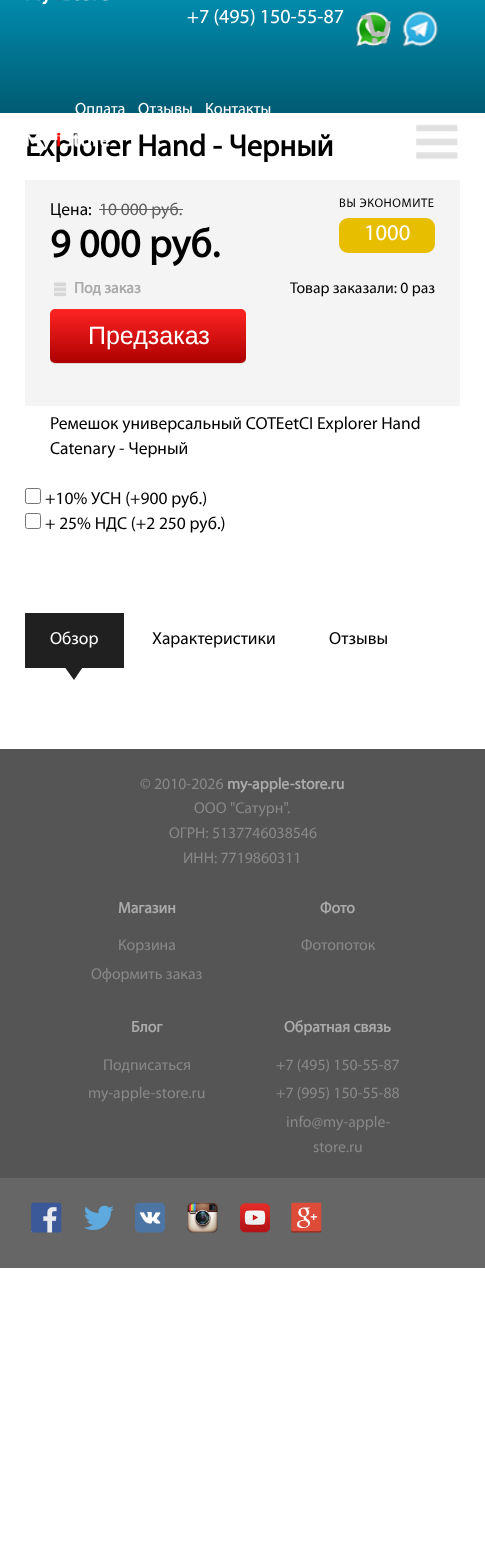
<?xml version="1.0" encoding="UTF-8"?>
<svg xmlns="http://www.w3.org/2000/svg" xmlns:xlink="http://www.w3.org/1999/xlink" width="485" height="1566">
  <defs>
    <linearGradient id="g1" gradientUnits="userSpaceOnUse" x1="243" y1="0" x2="243" y2="113"><stop offset="0" stop-color="#028aac" /><stop offset="1" stop-color="#005b72" /></linearGradient>
    <linearGradient id="g2" gradientUnits="userSpaceOnUse" x1="148" y1="309" x2="148" y2="363"><stop offset="0" stop-color="#ff2424" /><stop offset="1" stop-color="#ad0000" /></linearGradient>
    <clipPath id="clip1"><rect width="485" height="113" /></clipPath>
  </defs>
  <rect width="100%" height="100%" fill="#ffffff" />
  <rect width="485" height="113" fill="url(#g1)" />
  <image x="26" y="0" width="83" height="5" xlink:href="image1.png" />
  <image x="356" y="11" width="36" height="36" xlink:href="image2.png" />
  <image x="402" y="11" width="37" height="36" xlink:href="image3.png" />
  <image x="361" y="14" width="31" height="31" xlink:href="image4.png" />
  <image x="416" y="124" width="42" height="36" xlink:href="image6.png" />
  <rect x="25" y="180" width="435" height="226" fill="#f4f4f4" />
  <rect x="99" y="209" width="84" height="1" fill="#5f5f5f" />
  <rect x="339" y="218" width="96" height="35" rx="9" fill="#e7be00" />
  <image x="54" y="282" width="13" height="15" xlink:href="image7.png" />
  <rect x="50" y="310" width="196" height="54" rx="5" fill="#000000" fill-opacity="0.1" filter="blur(0.5px)" />
  <rect x="50" y="309" width="196" height="54" rx="5" fill="url(#g2)" />
  <rect x="25.5" y="488.5" width="15" height="15" rx="2" fill="none" stroke="#767676" />
  <rect x="25.5" y="513.5" width="15" height="15" rx="2" fill="none" stroke="#767676" />
  <rect x="25" y="613" width="99" height="55" fill="#202020" />
  <path d="M 65 667.5 h 17.5 l -8.5 12.5 z" fill="#202020" />
  <rect y="749" width="485" height="429" fill="#555555" />
  <rect y="1178" width="485" height="90" fill="#666666" />
  <image x="31" y="1202" width="31" height="31" xlink:href="image8.png" />
  <image x="84" y="1205" width="30" height="25" xlink:href="image9.png" />
  <image x="135" y="1202" width="30" height="31" xlink:href="image10.png" />
  <image x="187" y="1202" width="31" height="31" xlink:href="image11.png" />
  <image x="240" y="1202" width="30" height="31" xlink:href="image12.png" />
  <image x="291" y="1202" width="31" height="31" xlink:href="image13.png" />
  <text x="187" y="23" style="font-family: Myriad; font-size: 20px; fill: #ffffff">+7 (495) 150-55-87</text>
  <g clip-path="url(#clip1)">
    <text x="75" y="114" style="font-family: Myriad; font-size: 16.25px; fill: #ffffff">Оплата</text>
    <text x="138" y="114" style="font-family: Myriad; font-size: 16.25px; fill: #ffffff">Отзывы</text>
    <text x="205" y="114" style="font-family: Myriad; font-size: 16.25px; fill: #ffffff">Контакты</text>
  </g>
  <text x="25" y="156" style="font-family: Myriad; font-size: 30.6px; font-weight: bold; fill: #000000">Explorer Hand - Черный</text>
  <image x="27" y="132" width="83" height="19" xlink:href="image5.png" />
  <text x="50" y="215" style="font-family: Myriad; font-size: 17.5px; fill: #000000">Цена:</text>
  <text x="99" y="215" style="font-family: Myriad; font-size: 17.5px; fill: #5f5f5f">10 000 руб.</text>
  <text x="339" y="207" style="font-family: Myriad; font-size: 12.5px; letter-spacing: 0.6px; fill: #000000">ВЫ ЭКОНОМИТЕ</text>
  <text x="364" y="240" style="font-family: Myriad; font-size: 22.5px; fill: #ffffff">1000</text>
  <text x="50" y="257" style="font-family: Myriad; font-size: 40px; font-weight: bold; fill: #000000">9 000 руб.</text>
  <text x="74" y="293" style="font-family: Myriad; font-size: 15.75px; font-weight: bold; fill: #aaaaaa">Под заказ</text>
  <text x="290" y="293" style="font-family: Myriad; font-size: 15.75px; fill: #000000">Товар заказали: 0 раз</text>
  <text x="88" y="344" style="font-family: Liberation Sans; font-size: 25px; fill: #ffffff">Предзаказ</text>
  <text x="50" y="429" style="font-family: Myriad; font-size: 17.5px; fill: #000000">Ремешок универсальный COTEetCI Explorer Hand</text>
  <text x="50" y="454" style="font-family: Myriad; font-size: 17.5px; fill: #000000">Catenary - Черный</text>
  <text x="45" y="504" style="font-family: Myriad; font-size: 17.5px; fill: #000000">+10% УСН (+900 руб.)</text>
  <text x="45" y="529" style="font-family: Myriad; font-size: 17.5px; fill: #000000">+ 25% НДС (+2 250 руб.)</text>
  <text x="50" y="644" style="font-family: Myriad; font-size: 17.5px; fill: #ffffff">Обзор</text>
  <text x="152" y="644" style="font-family: Myriad; font-size: 17.5px; fill: #000000">Характеристики</text>
  <text x="329" y="644" style="font-family: Myriad; font-size: 17.5px; fill: #000000">Отзывы</text>
  <text x="140" y="789" style="font-family: Myriad; font-size: 15.75px; fill: #888888">© 2010-2026</text>
  <text x="227" y="789" style="font-family: Myriad; font-size: 15.75px; font-weight: bold; fill: #aaaaaa">my-apple-store.ru</text>
  <text x="194" y="813" style="font-family: Myriad; font-size: 15.75px; fill: #888888">ООО "Сатурн".</text>
  <text x="169" y="838" style="font-family: Myriad; font-size: 15.75px; fill: #888888">ОГРН: 5137746038546</text>
  <text x="183" y="863" style="font-family: Myriad; font-size: 15.75px; fill: #888888">ИНН: 7719860311</text>
  <text x="118" y="913" style="font-family: Myriad; font-size: 15.75px; font-weight: bold; fill: #aaaaaa">Магазин</text>
  <text x="118" y="950" style="font-family: Myriad; font-size: 15.75px; fill: #888888">Корзина</text>
  <text x="91" y="979" style="font-family: Myriad; font-size: 15.75px; fill: #888888">Оформить заказ</text>
  <text x="320" y="913" style="font-family: Myriad; font-size: 15.75px; font-weight: bold; fill: #aaaaaa">Фото</text>
  <text x="301" y="950" style="font-family: Myriad; font-size: 15.75px; fill: #888888">Фотопоток</text>
  <text x="131" y="1032" style="font-family: Myriad; font-size: 15.75px; font-weight: bold; fill: #aaaaaa">Блог</text>
  <text x="103" y="1070" style="font-family: Myriad; font-size: 15.75px; fill: #888888">Подписаться</text>
  <text x="88" y="1098" style="font-family: Myriad; font-size: 15.75px; fill: #888888">my-apple-store.ru</text>
  <text x="284" y="1032" style="font-family: Myriad; font-size: 15.75px; font-weight: bold; fill: #aaaaaa">Обратная связь</text>
  <text x="276" y="1070" style="font-family: Myriad; font-size: 15.75px; fill: #888888">+7 (495) 150-55-87</text>
  <text x="276" y="1098" style="font-family: Myriad; font-size: 15.75px; fill: #888888">+7 (995) 150-55-88</text>
  <text x="286" y="1127" style="font-family: Myriad; font-size: 15.75px; fill: #888888">info@my-apple-</text>
  <text x="313" y="1152" style="font-family: Myriad; font-size: 15.75px; fill: #888888">store.ru</text>
</svg>
